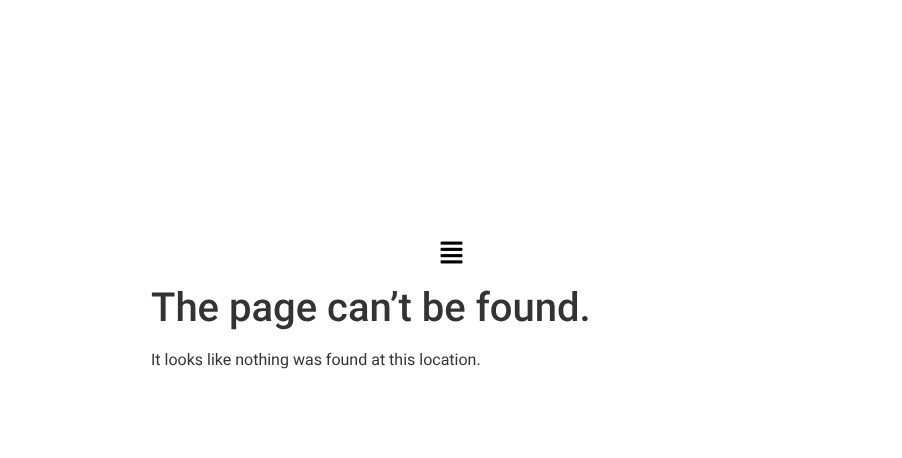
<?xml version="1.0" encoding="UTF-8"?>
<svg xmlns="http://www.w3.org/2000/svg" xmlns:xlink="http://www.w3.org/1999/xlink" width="902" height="458">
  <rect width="100%" height="100%" fill="#ffffff" />
  <image x="440" y="241" width="23" height="23" xlink:href="image1.png" />
  <text x="151" y="321" style="font-family: Roboto; font-size: 40px; font-weight: 500; fill: #333333">The page can’t be found.</text>
  <text x="151" y="365" style="font-family: Roboto; font-size: 16px; fill: #333333">It looks like nothing was found at this location.</text>
</svg>
